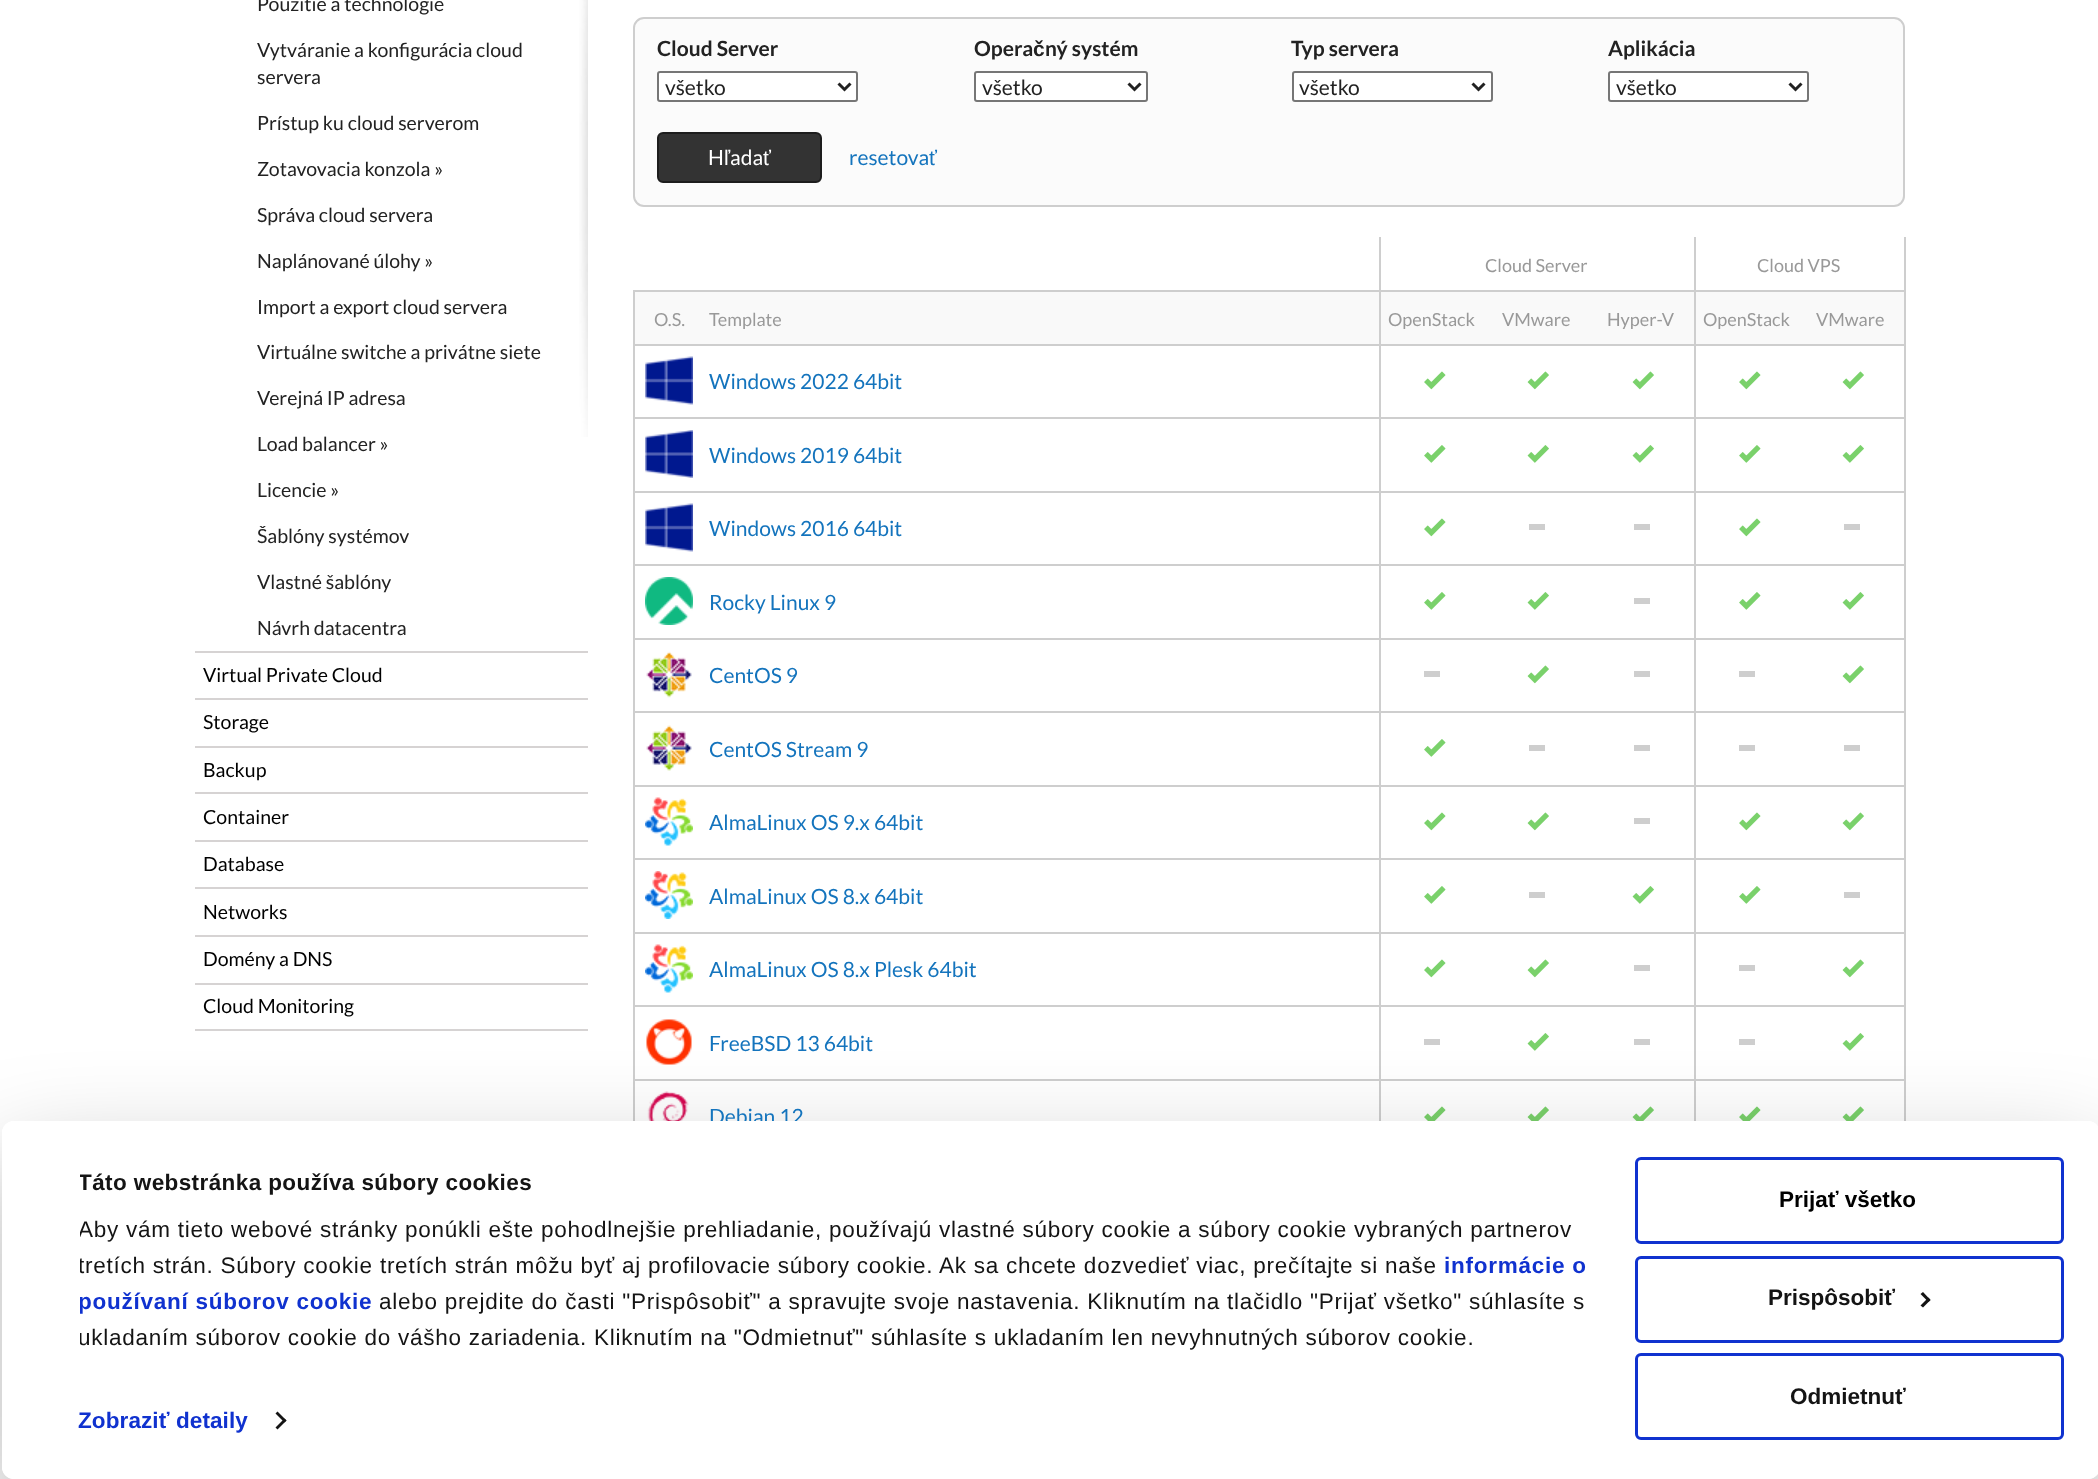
<?xml version="1.0" encoding="UTF-8"?>
<svg xmlns="http://www.w3.org/2000/svg" xmlns:xlink="http://www.w3.org/1999/xlink" width="2098" height="1479">
  <defs>
    <clipPath id="clip1"><path d="M 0 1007 h 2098 v 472 h -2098 z m 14 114 h 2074 c 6.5 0 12 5.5 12 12 v 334 c 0 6.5 -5.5 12 -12 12 h -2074 c -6.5 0 -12 -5.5 -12 -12 v -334 c 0 -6.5 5.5 -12 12 -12 z" clip-rule="evenodd" /></clipPath>
    <clipPath id="clip2"><rect x="80" y="1166" width="1546" height="190" /></clipPath>
  </defs>
  <rect width="100%" height="100%" fill="#ffffff" />
  <image x="579" y="0" width="9" height="437" xlink:href="image1.png" />
  <rect x="195" y="651" width="393" height="2" fill="#d6d3d3" />
  <rect x="195" y="698" width="393" height="2" fill="#d6d3d3" />
  <rect x="195" y="746" width="393" height="2" fill="#d6d3d3" />
  <rect x="195" y="792" width="393" height="2" fill="#d6d3d3" />
  <rect x="195" y="840" width="393" height="2" fill="#d6d3d3" />
  <rect x="195" y="887" width="393" height="2" fill="#d6d3d3" />
  <rect x="195" y="935" width="393" height="2" fill="#d6d3d3" />
  <rect x="195" y="983" width="393" height="2" fill="#d6d3d3" />
  <rect x="195" y="1029" width="393" height="2" fill="#d6d3d3" />
  <rect x="634" y="18" width="1270" height="188" rx="10" fill="#fbfbfb" stroke="#cecece" stroke-width="2" />
  <rect x="658" y="72" width="199" height="29" rx="2" fill="#ffffff" stroke="#767676" stroke-width="2" />
  <path d="M 838.5 83.5 l 6 6 l 6 -6" fill="none" stroke="#222222" stroke-width="3" />
  <rect x="975" y="72" width="172" height="29" rx="2" fill="#ffffff" stroke="#767676" stroke-width="2" />
  <path d="M 1128.5 83.5 l 6 6 l 6 -6" fill="none" stroke="#222222" stroke-width="3" />
  <rect x="1293" y="72" width="199" height="29" rx="2" fill="#ffffff" stroke="#767676" stroke-width="2" />
  <path d="M 1472.5 83.5 l 6 6 l 6 -6" fill="none" stroke="#222222" stroke-width="3" />
  <rect x="1609" y="72" width="199" height="29" rx="2" fill="#ffffff" stroke="#767676" stroke-width="2" />
  <path d="M 1789.5 83.5 l 6 6 l 6 -6" fill="none" stroke="#222222" stroke-width="3" />
  <rect x="658" y="133" width="163" height="49" rx="5" fill="#333333" stroke="#1d1d1d" stroke-width="2" />
  <rect x="635" y="292" width="1269" height="52" fill="#f9f9f9" />
  <rect x="633" y="290" width="1272" height="2" fill="#cecece" />
  <rect x="1904" y="344" width="2" height="777" fill="#cecece" />
  <rect x="1904" y="237" width="2" height="108" fill="#cecece" />
  <rect x="1694" y="1079" width="2" height="42" fill="#cecece" />
  <rect x="1694" y="1079" width="211" height="2" fill="#cecece" />
  <rect x="1694" y="1005" width="2" height="75" fill="#cecece" />
  <rect x="1694" y="1005" width="211" height="2" fill="#cecece" />
  <rect x="1694" y="932" width="2" height="75" fill="#cecece" />
  <rect x="1694" y="932" width="211" height="2" fill="#cecece" />
  <rect x="1694" y="858" width="2" height="75" fill="#cecece" />
  <rect x="1694" y="858" width="211" height="2" fill="#cecece" />
  <rect x="1694" y="785" width="2" height="75" fill="#cecece" />
  <rect x="1694" y="785" width="211" height="2" fill="#cecece" />
  <rect x="1694" y="711" width="2" height="75" fill="#cecece" />
  <rect x="1694" y="711" width="211" height="2" fill="#cecece" />
  <rect x="1694" y="638" width="2" height="75" fill="#cecece" />
  <rect x="1694" y="638" width="211" height="2" fill="#cecece" />
  <rect x="1694" y="564" width="2" height="75" fill="#cecece" />
  <rect x="1694" y="564" width="211" height="2" fill="#cecece" />
  <rect x="1694" y="491" width="2" height="75" fill="#cecece" />
  <rect x="1694" y="491" width="211" height="2" fill="#cecece" />
  <rect x="1694" y="417" width="2" height="75" fill="#cecece" />
  <rect x="1694" y="417" width="211" height="2" fill="#cecece" />
  <rect x="1694" y="344" width="2" height="75" fill="#cecece" />
  <rect x="1694" y="344" width="211" height="2" fill="#cecece" />
  <rect x="1694" y="237" width="2" height="108" fill="#cecece" />
  <rect x="1379" y="1079" width="2" height="42" fill="#cecece" />
  <rect x="1379" y="1079" width="316" height="2" fill="#cecece" />
  <rect x="1379" y="1005" width="2" height="75" fill="#cecece" />
  <rect x="1379" y="1005" width="316" height="2" fill="#cecece" />
  <rect x="1379" y="932" width="2" height="75" fill="#cecece" />
  <rect x="1379" y="932" width="316" height="2" fill="#cecece" />
  <rect x="1379" y="858" width="2" height="75" fill="#cecece" />
  <rect x="1379" y="858" width="316" height="2" fill="#cecece" />
  <rect x="1379" y="785" width="2" height="75" fill="#cecece" />
  <rect x="1379" y="785" width="316" height="2" fill="#cecece" />
  <rect x="1379" y="711" width="2" height="75" fill="#cecece" />
  <rect x="1379" y="711" width="316" height="2" fill="#cecece" />
  <rect x="1379" y="638" width="2" height="75" fill="#cecece" />
  <rect x="1379" y="638" width="316" height="2" fill="#cecece" />
  <rect x="1379" y="564" width="2" height="75" fill="#cecece" />
  <rect x="1379" y="564" width="316" height="2" fill="#cecece" />
  <rect x="1379" y="491" width="2" height="75" fill="#cecece" />
  <rect x="1379" y="491" width="316" height="2" fill="#cecece" />
  <rect x="1379" y="417" width="2" height="75" fill="#cecece" />
  <rect x="1379" y="417" width="316" height="2" fill="#cecece" />
  <rect x="1379" y="344" width="2" height="75" fill="#cecece" />
  <rect x="1379" y="344" width="316" height="2" fill="#cecece" />
  <rect x="1379" y="237" width="2" height="108" fill="#cecece" />
  <rect x="633" y="1079" width="2" height="42" fill="#cecece" />
  <rect x="633" y="1079" width="747" height="2" fill="#cecece" />
  <rect x="633" y="1005" width="2" height="75" fill="#cecece" />
  <rect x="633" y="1005" width="747" height="2" fill="#cecece" />
  <rect x="633" y="932" width="2" height="75" fill="#cecece" />
  <rect x="633" y="932" width="747" height="2" fill="#cecece" />
  <rect x="633" y="858" width="2" height="75" fill="#cecece" />
  <rect x="633" y="858" width="747" height="2" fill="#cecece" />
  <rect x="633" y="785" width="2" height="75" fill="#cecece" />
  <rect x="633" y="785" width="747" height="2" fill="#cecece" />
  <rect x="633" y="711" width="2" height="75" fill="#cecece" />
  <rect x="633" y="711" width="747" height="2" fill="#cecece" />
  <rect x="633" y="638" width="2" height="75" fill="#cecece" />
  <rect x="633" y="638" width="747" height="2" fill="#cecece" />
  <rect x="633" y="564" width="2" height="75" fill="#cecece" />
  <rect x="633" y="564" width="747" height="2" fill="#cecece" />
  <rect x="633" y="491" width="2" height="75" fill="#cecece" />
  <rect x="633" y="491" width="747" height="2" fill="#cecece" />
  <rect x="633" y="417" width="2" height="75" fill="#cecece" />
  <rect x="633" y="417" width="747" height="2" fill="#cecece" />
  <rect x="633" y="344" width="2" height="75" fill="#cecece" />
  <rect x="633" y="344" width="747" height="2" fill="#cecece" />
  <rect x="633" y="290" width="2" height="55" fill="#cecece" />
  <image x="645" y="356" width="48" height="49" xlink:href="image2.png" />
  <image x="1632" y="371" width="22" height="19" xlink:href="image3.png" />
  <image x="1424" y="371" width="22" height="19" xlink:href="image4.png" />
  <image x="1527" y="371" width="22" height="19" xlink:href="image3.png" />
  <image x="1842" y="371" width="22" height="19" xlink:href="image3.png" />
  <image x="1739" y="371" width="22" height="19" xlink:href="image4.png" />
  <image x="645" y="430" width="48" height="48" xlink:href="image5.png" />
  <image x="1632" y="445" width="22" height="18" xlink:href="image6.png" />
  <image x="1424" y="445" width="22" height="18" xlink:href="image7.png" />
  <image x="1527" y="445" width="22" height="18" xlink:href="image6.png" />
  <image x="1842" y="445" width="22" height="18" xlink:href="image6.png" />
  <image x="1739" y="445" width="22" height="18" xlink:href="image7.png" />
  <image x="645" y="503" width="48" height="49" xlink:href="image2.png" />
  <rect x="1634" y="524" width="16" height="6" fill="#cecece" />
  <image x="1424" y="518" width="22" height="19" xlink:href="image4.png" />
  <rect x="1529" y="524" width="16" height="6" fill="#cecece" />
  <image x="1739" y="518" width="22" height="19" xlink:href="image4.png" />
  <rect x="1844" y="524" width="16" height="6" fill="#cecece" />
  <image x="645" y="577" width="48" height="48" xlink:href="image8.png" />
  <rect x="1634" y="598" width="16" height="6" fill="#cecece" />
  <image x="1424" y="592" width="22" height="18" xlink:href="image7.png" />
  <image x="1527" y="592" width="22" height="18" xlink:href="image6.png" />
  <image x="1842" y="592" width="22" height="18" xlink:href="image6.png" />
  <image x="1739" y="592" width="22" height="18" xlink:href="image7.png" />
  <image x="646" y="651" width="46" height="47" xlink:href="image9.png" />
  <rect x="1634" y="671" width="16" height="6" fill="#cecece" />
  <rect x="1424" y="671" width="16" height="6" fill="#cecece" />
  <image x="1527" y="665" width="22" height="19" xlink:href="image3.png" />
  <image x="1842" y="665" width="22" height="19" xlink:href="image3.png" />
  <rect x="1739" y="671" width="16" height="6" fill="#cecece" />
  <image x="646" y="725" width="46" height="46" xlink:href="image10.png" />
  <rect x="1634" y="745" width="16" height="6" fill="#cecece" />
  <image x="1424" y="739" width="22" height="18" xlink:href="image7.png" />
  <rect x="1529" y="745" width="16" height="6" fill="#cecece" />
  <rect x="1844" y="745" width="16" height="6" fill="#cecece" />
  <rect x="1739" y="745" width="16" height="6" fill="#cecece" />
  <image x="645" y="797" width="48" height="49" xlink:href="image11.png" />
  <rect x="1634" y="818" width="16" height="6" fill="#cecece" />
  <image x="1424" y="812" width="22" height="19" xlink:href="image4.png" />
  <image x="1527" y="812" width="22" height="19" xlink:href="image3.png" />
  <image x="1842" y="812" width="22" height="19" xlink:href="image3.png" />
  <image x="1739" y="812" width="22" height="19" xlink:href="image4.png" />
  <image x="645" y="871" width="48" height="48" xlink:href="image12.png" />
  <image x="1632" y="886" width="22" height="18" xlink:href="image6.png" />
  <image x="1424" y="886" width="22" height="18" xlink:href="image7.png" />
  <rect x="1529" y="892" width="16" height="6" fill="#cecece" />
  <image x="1739" y="886" width="22" height="18" xlink:href="image7.png" />
  <rect x="1844" y="892" width="16" height="6" fill="#cecece" />
  <image x="645" y="944" width="48" height="49" xlink:href="image11.png" />
  <rect x="1634" y="965" width="16" height="6" fill="#cecece" />
  <image x="1424" y="959" width="22" height="19" xlink:href="image4.png" />
  <image x="1527" y="959" width="22" height="19" xlink:href="image3.png" />
  <image x="1842" y="959" width="22" height="19" xlink:href="image3.png" />
  <rect x="1739" y="965" width="16" height="6" fill="#cecece" />
  <image x="646" y="1019" width="46" height="46" xlink:href="image13.png" />
  <rect x="1634" y="1039" width="16" height="6" fill="#cecece" />
  <rect x="1424" y="1039" width="16" height="6" fill="#cecece" />
  <image x="1527" y="1033" width="22" height="18" xlink:href="image6.png" />
  <image x="1842" y="1033" width="22" height="18" xlink:href="image6.png" />
  <rect x="1739" y="1039" width="16" height="6" fill="#cecece" />
  <image x="647" y="1091" width="42" height="30" xlink:href="image14.png" />
  <image x="1424" y="1106" width="22" height="15" xlink:href="image15.png" />
  <image x="1527" y="1106" width="22" height="15" xlink:href="image16.png" />
  <image x="1632" y="1106" width="22" height="15" xlink:href="image16.png" />
  <image x="1739" y="1106" width="22" height="15" xlink:href="image15.png" />
  <image x="1842" y="1106" width="22" height="15" xlink:href="image16.png" />
  <g clip-path="url(#clip1)">
    <rect x="2" y="1166" width="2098" height="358" rx="12" fill="#000000" fill-opacity="0.3" filter="blur(52.5px)" />
  </g>
  <text x="257" y="11" style="font-family: Lato; font-size: 19.5px; fill: #222222">Použitie a technológie</text>
  <text x="257" y="57" style="font-family: Lato; font-size: 19.5px; fill: #222222">Vytváranie a konfigurácia cloud</text>
  <text x="257" y="84" style="font-family: Lato; font-size: 19.5px; fill: #222222">servera</text>
  <text x="257" y="130" style="font-family: Lato; font-size: 19.5px; fill: #222222">Prístup ku cloud serverom</text>
  <text x="257" y="176" style="font-family: Lato; font-size: 19.5px; fill: #222222">Zotavovacia konzola »</text>
  <text x="257" y="222" style="font-family: Lato; font-size: 19.5px; fill: #222222">Správa cloud servera</text>
  <text x="257" y="268" style="font-family: Lato; font-size: 19.5px; fill: #222222">Naplánované úlohy »</text>
  <text x="257" y="314" style="font-family: Lato; font-size: 19.5px; fill: #222222">Import a export cloud servera</text>
  <text x="257" y="359" style="font-family: Lato; font-size: 19.5px; fill: #222222">Virtuálne switche a privátne siete</text>
  <text x="257" y="405" style="font-family: Lato; font-size: 19.5px; fill: #222222">Verejná IP adresa</text>
  <text x="257" y="451" style="font-family: Lato; font-size: 19.5px; fill: #222222">Load balancer »</text>
  <text x="257" y="497" style="font-family: Lato; font-size: 19.5px; fill: #222222">Licencie »</text>
  <text x="257" y="543" style="font-family: Lato; font-size: 19.5px; fill: #222222">Šablóny systémov</text>
  <text x="257" y="589" style="font-family: Lato; font-size: 19.5px; fill: #222222">Vlastné šablóny</text>
  <text x="257" y="635" style="font-family: Lato; font-size: 19.5px; fill: #222222">Návrh datacentra</text>
  <text x="203" y="682" style="font-family: Lato; font-size: 19.5px; fill: #000000">Virtual Private Cloud</text>
  <text x="203" y="729" style="font-family: Lato; font-size: 19.5px; fill: #000000">Storage</text>
  <text x="203" y="777" style="font-family: Lato; font-size: 19.5px; fill: #000000">Backup</text>
  <text x="203" y="824" style="font-family: Lato; font-size: 19.5px; fill: #000000">Container</text>
  <text x="203" y="871" style="font-family: Lato; font-size: 19.5px; fill: #000000">Database</text>
  <text x="203" y="919" style="font-family: Lato; font-size: 19.5px; fill: #000000">Networks</text>
  <text x="203" y="966" style="font-family: Lato; font-size: 19.5px; fill: #000000">Domény a DNS</text>
  <text x="203" y="1013" style="font-family: Lato; font-size: 19.5px; fill: #000000">Cloud Monitoring</text>
  <text x="657" y="56" style="font-family: Lato; font-size: 21px; font-weight: bold; fill: #222222">Cloud Server</text>
  <text x="665" y="95" style="font-family: Lato; font-size: 21px; fill: #222222">všetko</text>
  <text x="974" y="56" style="font-family: Lato; font-size: 21px; font-weight: bold; fill: #222222">Opera</text>
  <text x="1033" y="56" style="font-family: Liberation Sans; font-size: 21px; font-weight: bold; fill: #222222">č</text>
  <text x="1045" y="56" style="font-family: Lato; font-size: 21px; font-weight: bold; fill: #222222">ný systém</text>
  <text x="982" y="95" style="font-family: Lato; font-size: 21px; fill: #222222">všetko</text>
  <text x="1291" y="56" style="font-family: Lato; font-size: 21px; font-weight: bold; fill: #222222">Typ servera</text>
  <text x="1299" y="95" style="font-family: Lato; font-size: 21px; fill: #222222">všetko</text>
  <text x="1608" y="56" style="font-family: Lato; font-size: 21px; font-weight: bold; fill: #222222">Aplikácia</text>
  <text x="1616" y="95" style="font-family: Lato; font-size: 21px; fill: #222222">všetko</text>
  <text x="708" y="165" style="font-family: Lato; font-size: 21px; fill: #ffffff">H</text>
  <text x="724" y="165" style="font-family: Liberation Sans; font-size: 21px; fill: #ffffff">ľ</text>
  <text x="730" y="165" style="font-family: Lato; font-size: 21px; fill: #ffffff">ada</text>
  <text x="763" y="165" style="font-family: Liberation Sans; font-size: 21px; fill: #ffffff">ť</text>
  <text x="849" y="165" style="font-family: Lato; font-size: 21px; fill: #1474bd">resetova</text>
  <text x="929" y="165" style="font-family: Liberation Sans; font-size: 21px; fill: #1474bd">ť</text>
  <text x="1485" y="272" style="font-family: Lato; font-size: 18px; fill: #999999">Cloud Server</text>
  <text x="1757" y="272" style="font-family: Lato; font-size: 18px; fill: #999999">Cloud VPS</text>
  <text x="654" y="326" style="font-family: Lato; font-size: 18px; fill: #999999">O.S.</text>
  <text x="709" y="326" style="font-family: Lato; font-size: 18px; fill: #999999">Template</text>
  <text x="1388" y="326" style="font-family: Lato; font-size: 18px; fill: #999999">OpenStack</text>
  <text x="1502" y="326" style="font-family: Lato; font-size: 18px; fill: #999999">VMware</text>
  <text x="1607" y="326" style="font-family: Lato; font-size: 18px; fill: #999999">Hyper-V</text>
  <text x="1703" y="326" style="font-family: Lato; font-size: 18px; fill: #999999">OpenStack</text>
  <text x="1816" y="326" style="font-family: Lato; font-size: 18px; fill: #999999">VMware</text>
  <text x="709" y="389" style="font-family: Lato; font-size: 21px; fill: #1474bd">Windows 2022 64bit</text>
  <text x="709" y="463" style="font-family: Lato; font-size: 21px; fill: #1474bd">Windows 2019 64bit</text>
  <text x="709" y="536" style="font-family: Lato; font-size: 21px; fill: #1474bd">Windows 2016 64bit</text>
  <text x="709" y="610" style="font-family: Lato; font-size: 21px; fill: #1474bd">Rocky Linux 9</text>
  <text x="709" y="683" style="font-family: Lato; font-size: 21px; fill: #1474bd">CentOS 9</text>
  <text x="709" y="757" style="font-family: Lato; font-size: 21px; fill: #1474bd">CentOS Stream 9</text>
  <text x="709" y="830" style="font-family: Lato; font-size: 21px; fill: #1474bd">AlmaLinux OS 9.x 64bit</text>
  <text x="709" y="904" style="font-family: Lato; font-size: 21px; fill: #1474bd">AlmaLinux OS 8.x 64bit</text>
  <text x="709" y="977" style="font-family: Lato; font-size: 21px; fill: #1474bd">AlmaLinux OS 8.x Plesk 64bit</text>
  <text x="709" y="1051" style="font-family: Lato; font-size: 21px; fill: #1474bd">FreeBSD 13 64bit</text>
  <text x="709" y="1124" style="font-family: Lato; font-size: 21px; fill: #1474bd">Debian 12</text>
  <rect x="2" y="1121" width="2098" height="358" rx="12" fill="#ffffff" />
  <g clip-path="url(#clip2)">
    <text x="78" y="1190" style="font-family: Liberation Sans; font-size: 22.5px; font-weight: bold; letter-spacing: 0.4px; fill: #141414">Táto webstránka používa súbory cookies</text>
    <text x="78" y="1237" style="font-family: Liberation Sans; font-size: 22.5px; letter-spacing: 0.75px; fill: #141414">Aby vám tieto webové stránky ponúkli ešte pohodlnejšie prehliadanie, používajú vlastné súbory cookie a súbory cookie vybraných partnerov</text>
    <text x="78" y="1273" style="font-family: Liberation Sans; font-size: 22.5px; letter-spacing: 0.75px; fill: #141414">tretích strán. Súbory cookie tretích strán môžu byť aj profilovacie súbory cookie. Ak sa chcete dozvedieť viac, prečítajte si naše</text>
  </g>
  <text x="1444" y="1273" style="font-family: Liberation Sans; font-size: 22.5px; font-weight: bold; letter-spacing: 0.75px; fill: #1032cf">informácie o</text>
  <g clip-path="url(#clip2)">
    <text x="78" y="1309" style="font-family: Liberation Sans; font-size: 22.5px; font-weight: bold; letter-spacing: 0.75px; fill: #1032cf">používaní súborov cookie</text>
  </g>
  <text x="379" y="1309" style="font-family: Liberation Sans; font-size: 22.5px; letter-spacing: 0.75px; fill: #141414">alebo prejdite do časti "Prispôsobiť" a spravujte svoje nastavenia. Kliknutím na tlačidlo "Prijať všetko" súhlasíte s</text>
  <g clip-path="url(#clip2)">
    <text x="78" y="1345" style="font-family: Liberation Sans; font-size: 22.5px; letter-spacing: 0.75px; fill: #141414">ukladaním súborov cookie do vášho zariadenia. Kliknutím na "Odmietnuť" súhlasíte s ukladaním len nevyhnutných súborov cookie.</text>
  </g>
  <text x="78" y="1428" style="font-family: Liberation Sans; font-size: 22.5px; font-weight: bold; letter-spacing: 0.1px; fill: #1032cf">Zobraziť detaily</text>
  <path d="M 277.5 1411.5 l 9 9 l -2 2 l -9 -9 z" fill="#141414" />
  <path d="M 284.5 1418.5 l 2 2 l -9 9 l -2 -2 z" fill="#141414" />
  <rect x="1636.5" y="1158.5" width="426" height="84" rx="4.5" fill="none" stroke="#1032cf" stroke-width="3" />
  <text x="1779" y="1207" style="font-family: Liberation Sans; font-size: 22.5px; font-weight: bold; fill: #000000">Prijať všetko</text>
  <rect x="1636.5" y="1257.5" width="426" height="84" rx="4.5" fill="none" stroke="#1032cf" stroke-width="3" />
  <text x="1768" y="1305" style="font-family: Liberation Sans; font-size: 22.5px; font-weight: bold; fill: #141414">Prispôsobiť</text>
  <path d="M 1923 1292 l 7.5 8 l -2 2 l -8 -8 z" fill="#141414" />
  <path d="M 1928.5 1297.5 l 2 2.5 l -7.5 7.5 l -2.5 -2 z" fill="#141414" />
  <rect x="1636.5" y="1354.5" width="426" height="84" rx="4.5" fill="none" stroke="#1032cf" stroke-width="3" />
  <text x="1790" y="1404" style="font-family: Liberation Sans; font-size: 22.5px; font-weight: bold; fill: #141414">Odmietnuť</text>
</svg>
